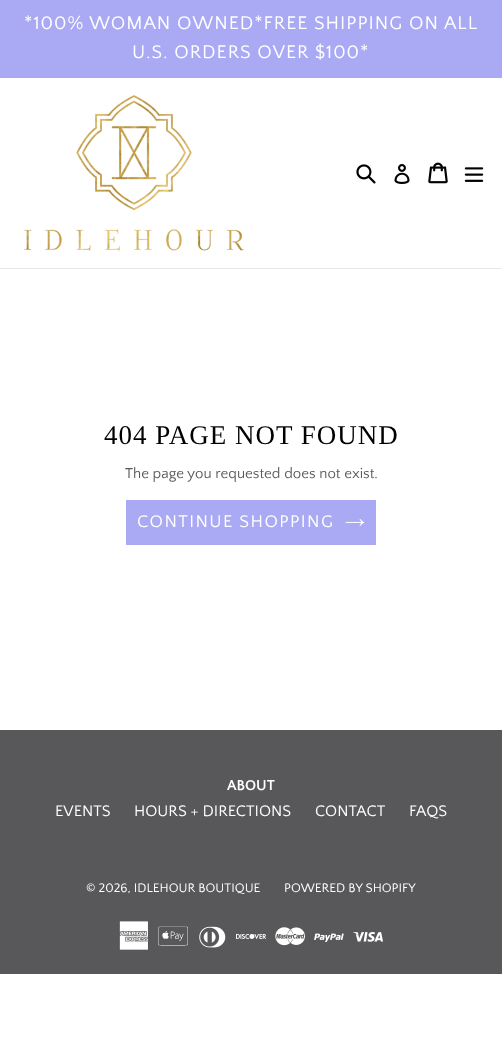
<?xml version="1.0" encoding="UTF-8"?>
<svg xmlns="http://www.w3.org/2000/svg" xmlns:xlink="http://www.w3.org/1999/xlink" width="502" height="1058">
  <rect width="100%" height="100%" fill="#ffffff" />
  <rect width="502" height="78" fill="#a9a9f4" />
  <rect y="268" width="502" height="1" fill="#e8e9eb" />
  <image x="24" y="95" width="220" height="156" xlink:href="image1.png" />
  <image x="356" y="164" width="20" height="20" xlink:href="image2.png" />
  <image x="394" y="164" width="16" height="20" xlink:href="image3.png" />
  <image x="428" y="162" width="20" height="22" xlink:href="image4.png" />
  <image x="464" y="167" width="20" height="15" xlink:href="image5.png" />
  <rect x="126" y="500" width="250" height="45" fill="#a9a9f4" />
  <image x="345" y="519" width="20" height="7" xlink:href="image6.png" />
  <rect y="730" width="502" height="244" fill="#58585a" />
  <image x="119" y="921" width="30" height="29" xlink:href="image7.png" />
  <image x="158" y="926" width="30" height="20" xlink:href="image8.png" />
  <image x="199" y="926" width="27" height="22" xlink:href="image9.png" />
  <image x="236" y="933" width="30" height="6" xlink:href="image10.png" />
  <image x="275" y="927" width="30" height="19" xlink:href="image11.png" />
  <image x="314" y="933" width="30" height="9" xlink:href="image12.png" />
  <image x="353" y="932" width="30" height="10" xlink:href="image13.png" />
  <text x="24" y="29" style="font-family: Quattrocento Sans; font-size: 19.2px; letter-spacing: 1px; fill: #ffffff">*100% WOMAN OWNED*FREE SHIPPING ON ALL</text>
  <text x="132" y="58" style="font-family: Quattrocento Sans; font-size: 19.2px; letter-spacing: 1px; fill: #ffffff">U.S. ORDERS OVER $100*</text>
  <text x="104" y="444" style="font-family: Liberation Serif; font-size: 27px; letter-spacing: 1px; fill: #000000">404 PAGE NOT FOUND</text>
  <text x="125" y="478" style="font-family: Quattrocento Sans; font-size: 15px; fill: #58585a">The page you requested does not exist.</text>
  <text x="137" y="527" style="font-family: Quattrocento Sans; font-size: 17.75px; letter-spacing: 1.4px; fill: #ffffff">CONTINUE SHOPPING</text>
  <text x="227" y="790" style="font-family: Quattrocento Sans; font-size: 15px; font-weight: bold; fill: #ffffff">ABOUT</text>
  <text x="55" y="816" style="font-family: Quattrocento Sans; font-size: 16px; fill: #ffffff">EVENTS</text>
  <text x="134" y="816" style="font-family: Quattrocento Sans; font-size: 16px; fill: #ffffff">HOURS + DIRECTIONS</text>
  <text x="315" y="816" style="font-family: Quattrocento Sans; font-size: 16px; fill: #ffffff">CONTACT</text>
  <text x="409" y="816" style="font-family: Quattrocento Sans; font-size: 16px; fill: #ffffff">FAQS</text>
  <text x="86" y="892" style="font-family: Quattrocento Sans; font-size: 13px; fill: #ffffff">© 2026, IDLEHOUR BOUTIQUE</text>
  <text x="284" y="892" style="font-family: Quattrocento Sans; font-size: 13px; fill: #ffffff">POWERED BY SHOPIFY</text>
</svg>
